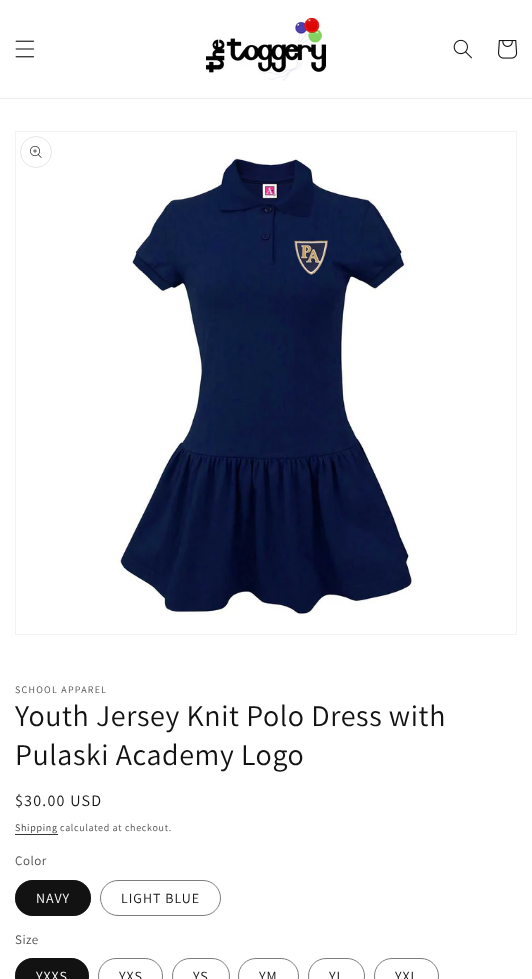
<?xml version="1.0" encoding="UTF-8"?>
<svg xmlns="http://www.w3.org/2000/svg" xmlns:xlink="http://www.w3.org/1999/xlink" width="532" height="979">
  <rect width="100%" height="100%" fill="#ffffff" />
  <rect y="98" width="532" height="1" fill="#ececec" />
  <image x="15" y="40" width="20" height="18" xlink:href="image1.png" />
  <image x="206" y="18" width="120" height="63" xlink:href="image2.png" />
  <image x="453" y="39" width="19" height="20" xlink:href="image3.png" />
  <image x="498" y="40" width="20" height="19" xlink:href="image4.png" />
  <rect x="15.5" y="131.5" width="501" height="503" fill="none" stroke="#f3f3f3" />
  <image x="116" y="157" width="299" height="458" xlink:href="image5.png" />
  <circle cx="36" cy="152" r="15.5" fill="none" stroke="#e7e7e7" />
  <image x="30" y="146" width="12" height="12" xlink:href="image6.png" />
  <rect x="15" y="834" width="43" height="1" fill="#363636" />
  <rect x="15" y="880" width="76" height="36" rx="18" fill="#121212" />
  <rect x="15.5" y="880.5" width="75" height="35" rx="17.5" fill="none" stroke="#121212" stroke-opacity="0.55" />
  <rect x="100.5" y="880.5" width="120" height="35" rx="17.5" fill="none" stroke="#7d7d7d" />
  <rect x="15" y="958" width="74" height="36" rx="18" fill="#121212" />
  <rect x="15.5" y="958.5" width="73" height="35" rx="17.5" fill="none" stroke="#121212" stroke-opacity="0.55" />
  <rect x="98.5" y="958.5" width="64" height="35" rx="17.5" fill="none" stroke="#7d7d7d" />
  <rect x="172.5" y="958.5" width="57" height="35" rx="17.5" fill="none" stroke="#7d7d7d" />
  <rect x="238.5" y="958.5" width="60" height="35" rx="17.5" fill="none" stroke="#7d7d7d" />
  <rect x="308.5" y="958.5" width="56" height="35" rx="17.5" fill="none" stroke="#7d7d7d" />
  <rect x="374.5" y="958.5" width="64" height="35" rx="17.5" fill="none" stroke="#7d7d7d" />
  <text x="15" y="693" style="font-family: Assistant; font-size: 10px; letter-spacing: 1.25px; fill: #4d4d4d">SCHOOL APPAREL</text>
  <text x="15" y="726" style="font-family: Assistant; font-size: 30px; letter-spacing: 0.6px; fill: #121212">Youth Jersey Knit Polo Dress with</text>
  <text x="15" y="765" style="font-family: Assistant; font-size: 30px; letter-spacing: 0.6px; fill: #121212">Pulaski Academy Logo</text>
  <text x="15" y="806" style="font-family: Assistant; font-size: 16px; letter-spacing: 1.25px; fill: #121212">$30.00 USD</text>
  <text x="15" y="831" style="font-family: Assistant; font-size: 10px; letter-spacing: 0.7px; fill: #363636">Shipping</text>
  <text x="60" y="831" style="font-family: Assistant; font-size: 10px; letter-spacing: 0.7px; fill: #4d4d4d">calculated at checkout.</text>
  <text x="15" y="865" style="font-family: Assistant; font-size: 13px; letter-spacing: 0.5px; fill: #4d4d4d">Color</text>
  <text x="36" y="903" style="font-family: Assistant; font-size: 14px; letter-spacing: 1px; fill: #ffffff">NAVY</text>
  <text x="121" y="903" style="font-family: Assistant; font-size: 14px; letter-spacing: 1px; fill: #121212">LIGHT BLUE</text>
  <text x="15" y="944" style="font-family: Assistant; font-size: 13px; letter-spacing: 0.5px; fill: #4d4d4d">Size</text>
  <text x="36" y="981" style="font-family: Assistant; font-size: 14px; letter-spacing: 1px; fill: #ffffff">YXXS</text>
  <text x="119" y="981" style="font-family: Assistant; font-size: 14px; letter-spacing: 1px; fill: #121212">YXS</text>
  <text x="193" y="981" style="font-family: Assistant; font-size: 14px; letter-spacing: 1px; fill: #121212">YS</text>
  <text x="259" y="981" style="font-family: Assistant; font-size: 14px; letter-spacing: 1px; fill: #121212">YM</text>
  <text x="329" y="981" style="font-family: Assistant; font-size: 14px; letter-spacing: 1px; fill: #121212">YL</text>
  <text x="395" y="981" style="font-family: Assistant; font-size: 14px; letter-spacing: 1px; fill: #121212">YXL</text>
</svg>
